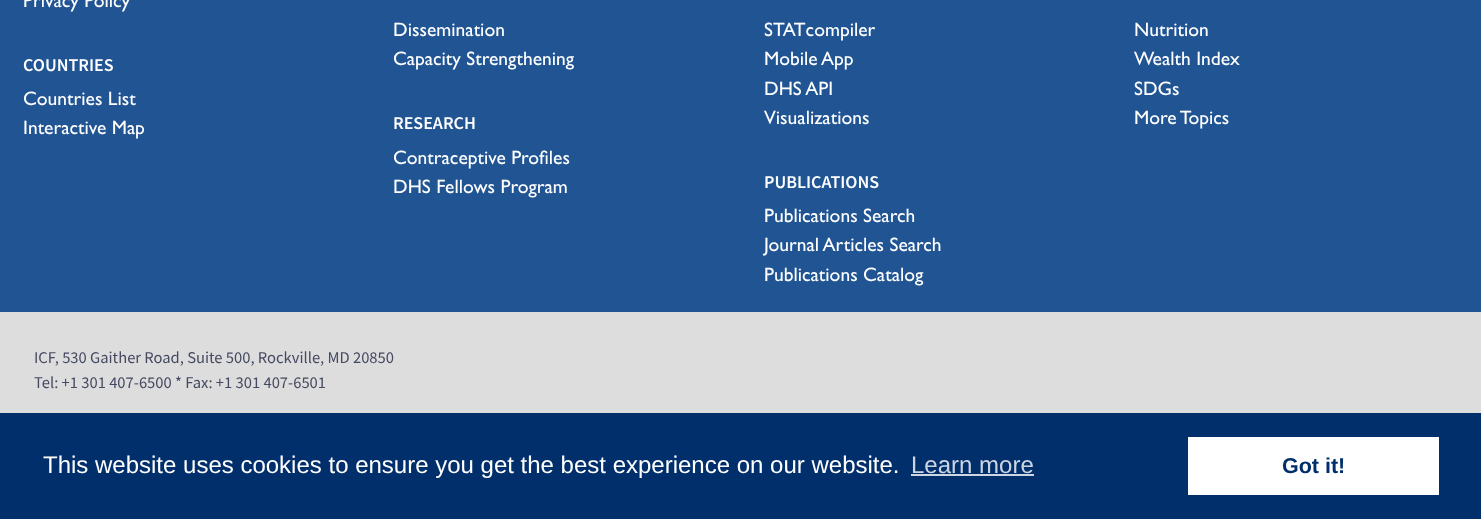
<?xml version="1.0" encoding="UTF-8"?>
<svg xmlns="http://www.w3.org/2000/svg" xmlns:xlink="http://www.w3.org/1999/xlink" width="1481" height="519">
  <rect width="100%" height="100%" fill="#205493" />
  <rect y="312" width="1481" height="101" fill="#dddddd" />
  <rect y="413" width="1481" height="106" fill="#002f6c" />
  <rect x="911" y="474" width="123" height="2" fill="#ccd5e2" />
  <rect x="1188" y="437" width="251" height="58" fill="#ffffff" />
  <text x="23" y="7" style="font-family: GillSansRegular; font-size: 19.5px; fill: #ffffff">Privacy Policy</text>
  <text x="23" y="71" style="font-family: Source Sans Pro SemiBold; font-size: 18px; font-weight: 600; fill: #ffffff">COUNTRIES</text>
  <text x="23" y="105" style="font-family: GillSansRegular; font-size: 19.5px; fill: #ffffff">Countries List</text>
  <text x="23" y="134" style="font-family: GillSansRegular; font-size: 19.5px; fill: #ffffff">Interactive Map</text>
  <text x="393" y="36" style="font-family: GillSansRegular; font-size: 19.5px; fill: #ffffff">Dissemination</text>
  <text x="393" y="65" style="font-family: GillSansRegular; font-size: 19.5px; fill: #ffffff">Capacity Strengthening</text>
  <text x="393" y="129" style="font-family: Source Sans Pro SemiBold; font-size: 18px; font-weight: 600; fill: #ffffff">RESEARCH</text>
  <text x="393" y="164" style="font-family: GillSansRegular; font-size: 19.5px; fill: #ffffff">Contraceptive Profiles</text>
  <text x="393" y="193" style="font-family: GillSansRegular; font-size: 19.5px; fill: #ffffff">DHS Fellows Program</text>
  <text x="764" y="36" style="font-family: GillSansRegular; font-size: 19.5px; fill: #ffffff">STATcompiler</text>
  <text x="764" y="65" style="font-family: GillSansRegular; font-size: 19.5px; fill: #ffffff">Mobile App</text>
  <text x="764" y="95" style="font-family: GillSansRegular; font-size: 19.5px; fill: #ffffff">DHS API</text>
  <text x="764" y="124" style="font-family: GillSansRegular; font-size: 19.5px; fill: #ffffff">Visualizations</text>
  <text x="764" y="188" style="font-family: Source Sans Pro SemiBold; font-size: 18px; font-weight: 600; fill: #ffffff">PUBLICATIONS</text>
  <text x="764" y="222" style="font-family: GillSansRegular; font-size: 19.5px; fill: #ffffff">Publications Search</text>
  <text x="764" y="251" style="font-family: GillSansRegular; font-size: 19.5px; fill: #ffffff">Journal Articles Search</text>
  <text x="764" y="281" style="font-family: GillSansRegular; font-size: 19.5px; fill: #ffffff">Publications Catalog</text>
  <text x="1134" y="36" style="font-family: GillSansRegular; font-size: 19.5px; fill: #ffffff">Nutrition</text>
  <text x="1134" y="65" style="font-family: GillSansRegular; font-size: 19.5px; fill: #ffffff">Wealth Index</text>
  <text x="1134" y="95" style="font-family: GillSansRegular; font-size: 19.5px; fill: #ffffff">SDGs</text>
  <text x="1134" y="124" style="font-family: GillSansRegular; font-size: 19.5px; fill: #ffffff">More Topics</text>
  <text x="34" y="363" style="font-family: Source Sans Pro; font-size: 16.5px; fill: #454961">ICF, 530 Gaither Road, Suite 500, Rockville, MD 20850</text>
  <text x="34" y="388" style="font-family: Source Sans Pro; font-size: 16.5px; fill: #454961">Tel: +1 301 407-6500 * Fax: +1 301 407-6501</text>
  <text x="43" y="473" style="font-family: Liberation Sans; font-size: 24px; fill: #ffffff">This website uses cookies to ensure you get the best experience on our website.</text>
  <text x="911" y="473" style="font-family: Liberation Sans; font-size: 24px; fill: #ccd5e2">Learn more</text>
  <text x="1282" y="473" style="font-family: Liberation Sans; font-size: 21.5px; font-weight: bold; fill: #002f6c">Got it!</text>
</svg>
